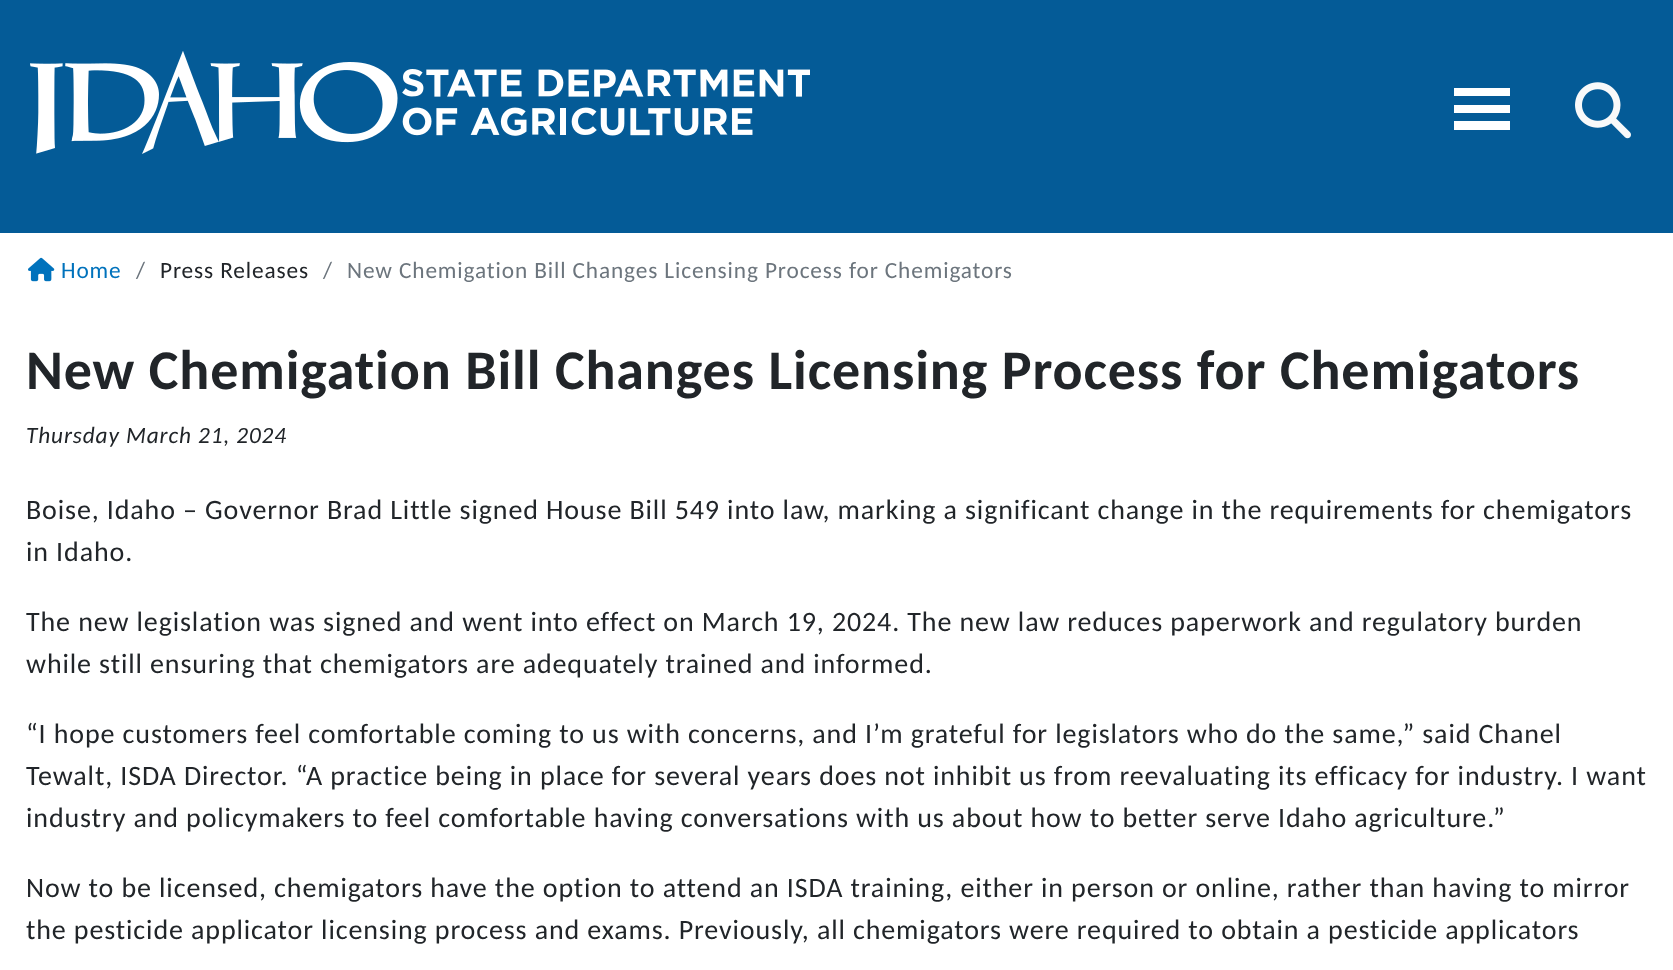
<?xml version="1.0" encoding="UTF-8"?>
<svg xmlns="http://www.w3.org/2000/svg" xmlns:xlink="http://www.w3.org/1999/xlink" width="1673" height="970">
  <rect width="100%" height="100%" fill="#ffffff" />
  <rect width="1673" height="233" fill="#045b97" />
  <image x="30" y="51" width="780" height="103" xlink:href="image1.png" />
  <path d="M 1510 96 v -8 h -56 v 8 z m 0 17 v -8 h -56 v 8 z m 0 17 v -9 h -56 v 9 z" fill="#ffffff" />
  <image x="1575" y="82" width="56" height="57" xlink:href="image2.png" />
  <image x="28" y="257" width="27" height="25" xlink:href="image3.png" />
  <text x="61" y="278" style="font-family: Carlito; font-size: 23.3px; letter-spacing: 0.88px; fill: #0072bc">Home</text>
  <text x="136" y="278" style="font-family: Carlito; font-size: 23.3px; letter-spacing: 0.88px; fill: #6c757d">/</text>
  <text x="160" y="278" style="font-family: Carlito; font-size: 23.3px; letter-spacing: 0.88px; fill: #212529">Press Releases</text>
  <text x="323" y="278" style="font-family: Carlito; font-size: 23.3px; letter-spacing: 0.88px; fill: #6c757d">/</text>
  <text x="347" y="278" style="font-family: Carlito; font-size: 23.3px; letter-spacing: 0.88px; fill: #6c757d">New Chemigation Bill Changes Licensing Process for Chemigators</text>
  <text x="26" y="389" style="font-family: Carlito; font-size: 56px; font-weight: bold; letter-spacing: 0.88px; fill: #212529">New Chemigation Bill Changes Licensing Process for Chemigators</text>
  <text x="26" y="443" style="font-family: Carlito; font-size: 23.3px; font-style: italic; letter-spacing: 0.88px; fill: #212529">Thursday March 21, 2024</text>
  <text x="26" y="519" style="font-family: Carlito; font-size: 28px; letter-spacing: 0.88px; fill: #212529">Boise, Idaho – Governor Brad Little signed House Bill 549 into law, marking a significant change in the requirements for chemigators</text>
  <text x="26" y="561" style="font-family: Carlito; font-size: 28px; letter-spacing: 0.88px; fill: #212529">in Idaho.</text>
  <text x="26" y="631" style="font-family: Carlito; font-size: 28px; letter-spacing: 0.88px; fill: #212529">The new legislation was signed and went into effect on March 19, 2024. The new law reduces paperwork and regulatory burden</text>
  <text x="26" y="673" style="font-family: Carlito; font-size: 28px; letter-spacing: 0.88px; fill: #212529">while still ensuring that chemigators are adequately trained and informed.</text>
  <text x="26" y="743" style="font-family: Carlito; font-size: 28px; letter-spacing: 0.88px; fill: #212529">“I hope customers feel comfortable coming to us with concerns, and I’m grateful for legislators who do the same,” said Chanel</text>
  <text x="26" y="785" style="font-family: Carlito; font-size: 28px; letter-spacing: 0.88px; fill: #212529">Tewalt, ISDA Director. “A practice being in place for several years does not inhibit us from reevaluating its efficacy for industry. I want</text>
  <text x="26" y="827" style="font-family: Carlito; font-size: 28px; letter-spacing: 0.88px; fill: #212529">industry and policymakers to feel comfortable having conversations with us about how to better serve Idaho agriculture.”</text>
  <text x="26" y="897" style="font-family: Carlito; font-size: 28px; letter-spacing: 0.88px; fill: #212529">Now to be licensed, chemigators have the option to attend an ISDA training, either in person or online, rather than having to mirror</text>
  <text x="26" y="939" style="font-family: Carlito; font-size: 28px; letter-spacing: 0.88px; fill: #212529">the pesticide applicator licensing process and exams. Previously, all chemigators were required to obtain a pesticide applicators</text>
</svg>
